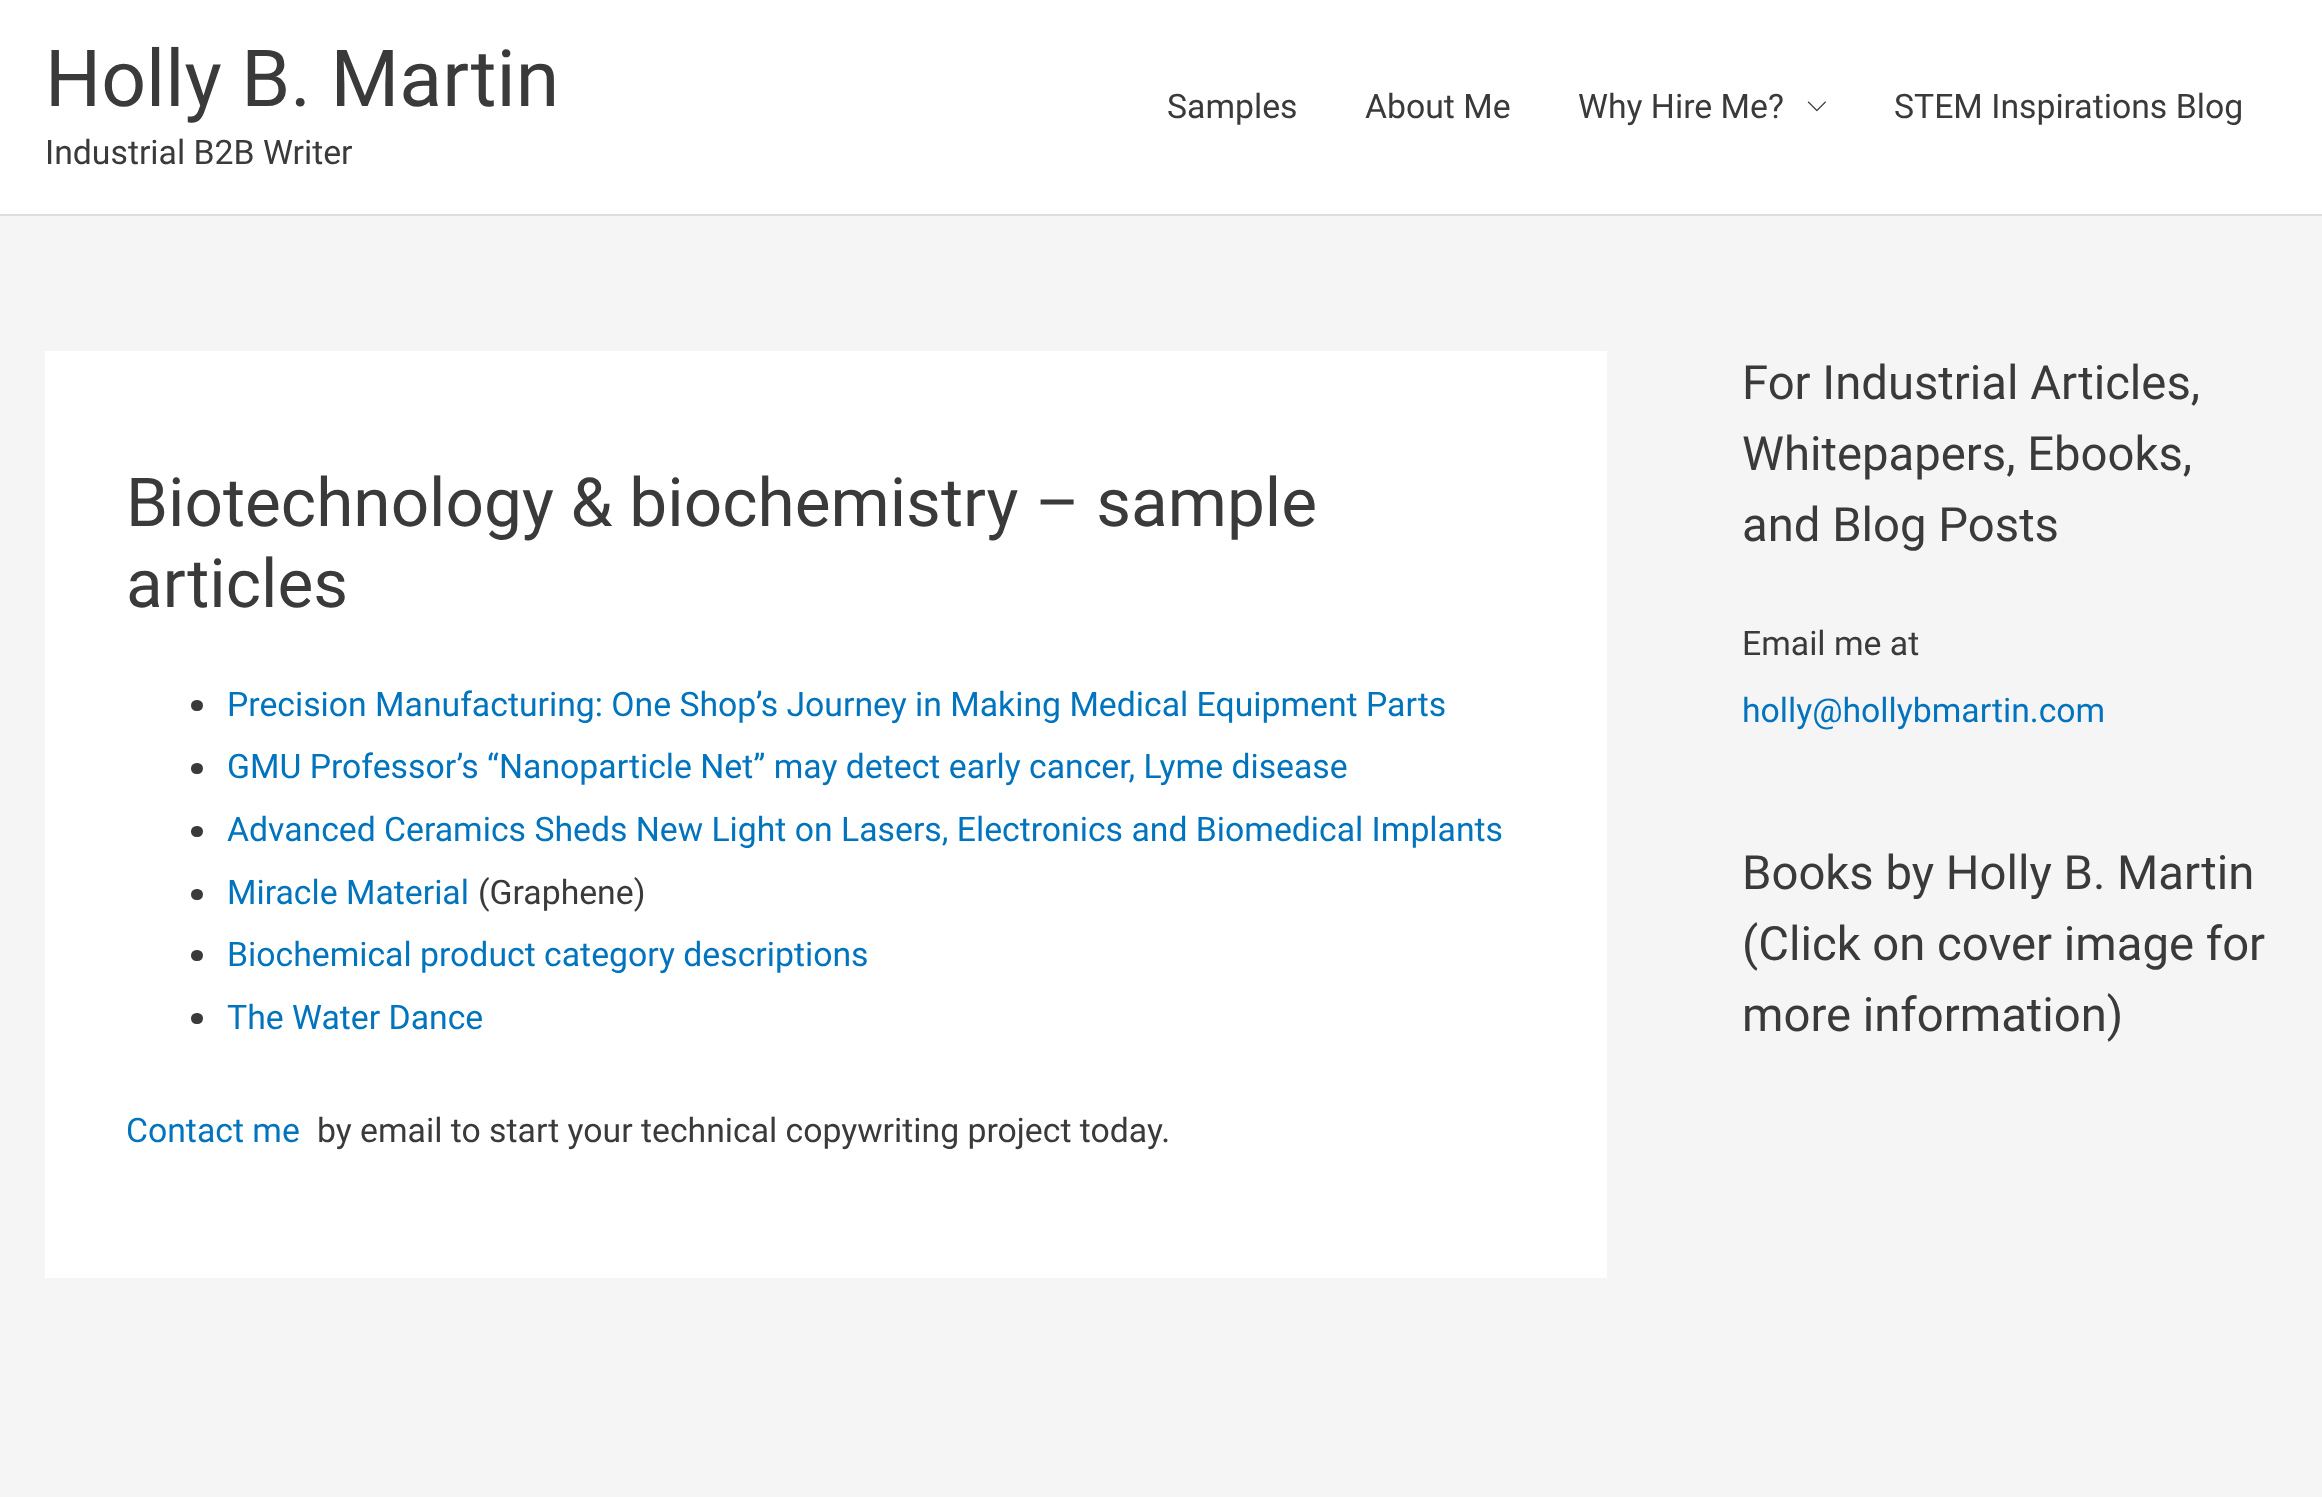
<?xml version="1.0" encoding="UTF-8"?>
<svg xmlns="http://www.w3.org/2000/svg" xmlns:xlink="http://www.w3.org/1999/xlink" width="2322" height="1497">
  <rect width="100%" height="100%" fill="#f5f5f5" />
  <rect width="2322" height="214" fill="#ffffff" />
  <rect y="214" width="2322" height="2" fill="#dddddd" />
  <image x="1807" y="101" width="19" height="11" xlink:href="image1.png" />
  <rect x="45" y="351" width="1562" height="927" fill="#ffffff" />
  <rect x="191" y="700" width="12" height="11" rx="5.5" fill="#3a3a3a" />
  <rect x="191" y="763" width="12" height="11" rx="5.5" fill="#3a3a3a" />
  <rect x="191" y="826" width="12" height="11" rx="5.5" fill="#3a3a3a" />
  <rect x="191" y="889" width="12" height="11" rx="5.5" fill="#3a3a3a" />
  <rect x="191" y="950" width="12" height="11" rx="5.5" fill="#3a3a3a" />
  <rect x="191" y="1013" width="12" height="11" rx="5.5" fill="#3a3a3a" />
  <text x="45" y="106" style="font-family: Roboto; font-size: 78.75px; fill: #3a3a3a">Holly B. Martin</text>
  <text x="45" y="164" style="font-family: Roboto; font-size: 33.75px; fill: #3a3a3a">Industrial B2B Writer</text>
  <text x="1167" y="118" style="font-family: Roboto; font-size: 33.75px; fill: #3a3a3a">Samples</text>
  <text x="1365" y="118" style="font-family: Roboto; font-size: 33.75px; fill: #3a3a3a">About Me</text>
  <text x="1578" y="118" style="font-family: Roboto; font-size: 33.75px; fill: #3a3a3a">Why Hire Me?</text>
  <text x="1894" y="118" style="font-family: Roboto; font-size: 33.75px; fill: #3a3a3a">STEM Inspirations Blog</text>
  <text x="126" y="526" style="font-family: Roboto; font-size: 67.5px; fill: #3a3a3a">Biotechnology &amp; biochemistry – sample</text>
  <text x="126" y="607" style="font-family: Roboto; font-size: 67.5px; fill: #3a3a3a">articles</text>
  <text x="227" y="716" style="font-family: Roboto; font-size: 33.75px; fill: #0274be">Precision Manufacturing: One Shop’s Journey in Making Medical Equipment Parts</text>
  <text x="227" y="778" style="font-family: Roboto; font-size: 33.75px; fill: #0274be">GMU Professor’s “Nanoparticle Net” may detect early cancer, Lyme disease</text>
  <text x="227" y="841" style="font-family: Roboto; font-size: 33.75px; fill: #0274be">Advanced Ceramics Sheds New Light on Lasers, Electronics and Biomedical Implants</text>
  <text x="227" y="904" style="font-family: Roboto; font-size: 33.75px; fill: #0274be">Miracle Material</text>
  <text x="478" y="904" style="font-family: Roboto; font-size: 33.75px; fill: #3a3a3a">(Graphene)</text>
  <text x="227" y="966" style="font-family: Roboto; font-size: 33.75px; fill: #0274be">Biochemical product category descriptions</text>
  <text x="227" y="1029" style="font-family: Roboto; font-size: 33.75px; fill: #0274be">The Water Dance</text>
  <text x="126" y="1142" style="font-family: Roboto; font-size: 33.75px; fill: #0274be">Contact me</text>
  <text x="317" y="1142" style="font-family: Roboto; font-size: 33.75px; fill: #3a3a3a">by email to start your technical copywriting project today.</text>
  <text x="1742" y="399" style="font-family: Roboto; font-size: 47.25px; fill: #3a3a3a">For Industrial Articles,</text>
  <text x="1742" y="470" style="font-family: Roboto; font-size: 47.25px; fill: #3a3a3a">Whitepapers, Ebooks,</text>
  <text x="1742" y="541" style="font-family: Roboto; font-size: 47.25px; fill: #3a3a3a">and Blog Posts</text>
  <text x="1742" y="655" style="font-family: Roboto; font-size: 33.75px; fill: #3a3a3a">Email me at</text>
  <text x="1742" y="722" style="font-family: Roboto; font-size: 33.75px; fill: #0274be">holly@hollybmartin.com</text>
  <text x="1742" y="889" style="font-family: Roboto; font-size: 47.25px; fill: #3a3a3a">Books by Holly B. Martin</text>
  <text x="1742" y="960" style="font-family: Roboto; font-size: 47.25px; fill: #3a3a3a">(Click on cover image for</text>
  <text x="1742" y="1031" style="font-family: Roboto; font-size: 47.25px; fill: #3a3a3a">more information)</text>
</svg>
